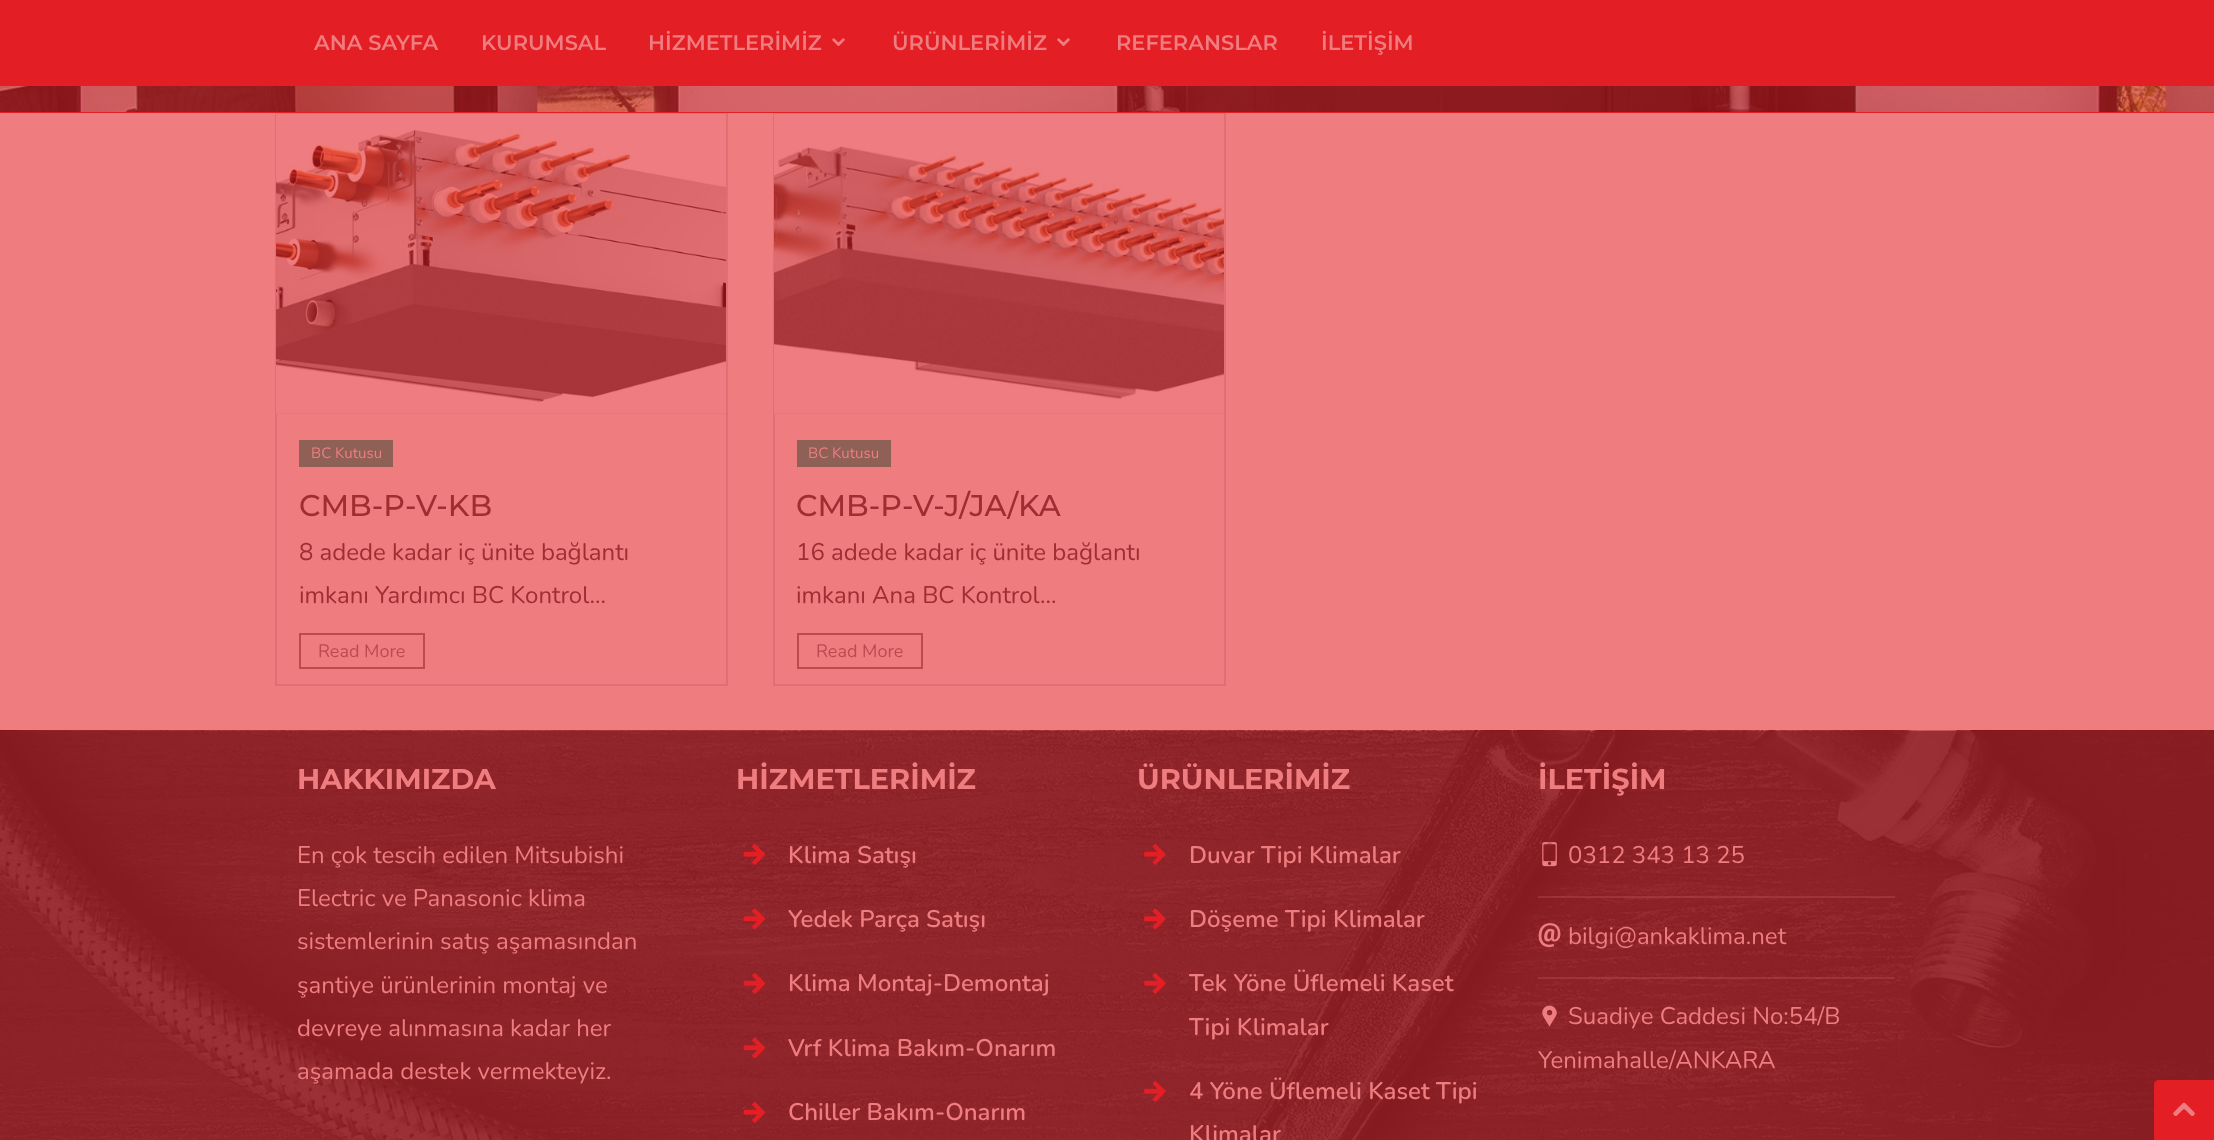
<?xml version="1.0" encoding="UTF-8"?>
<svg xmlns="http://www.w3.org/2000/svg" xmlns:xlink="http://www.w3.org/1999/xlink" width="2214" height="1140">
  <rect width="100%" height="100%" fill="#ef7d80" />
  <rect width="2214" height="86" fill="#e31e24" />
  <image x="832" y="38" width="13" height="8" xlink:href="image1.png" />
  <image x="1057" y="38" width="13" height="8" xlink:href="image1.png" />
  <rect y="112" width="2214" height="1" fill="#e31e24" />
  <image x="0" y="86" width="2214" height="26" xlink:href="image2.png" />
  <rect x="276" y="114" width="451" height="571" fill="none" stroke="#e06e72" stroke-width="2" />
  <rect x="276" y="413" width="450" height="1" fill="#e9777a" />
  <image x="276" y="113" width="450" height="300" xlink:href="image3.png" />
  <rect x="299" y="440" width="94" height="27" fill="#8f6056" />
  <rect x="300" y="634" width="124" height="34" fill="none" stroke="#bd4b4e" stroke-width="2" />
  <rect x="774" y="114" width="451" height="571" fill="none" stroke="#e06e72" stroke-width="2" />
  <rect x="774" y="413" width="450" height="1" fill="#e9777a" />
  <image x="774" y="113" width="450" height="300" xlink:href="image4.png" />
  <rect x="797" y="440" width="94" height="27" fill="#8f6056" />
  <rect x="798" y="634" width="124" height="34" fill="none" stroke="#bd4b4e" stroke-width="2" />
  <image x="0" y="730" width="2214" height="410" xlink:href="image5.png" />
  <image x="743" y="843" width="23" height="22" xlink:href="image6.png" />
  <image x="743" y="908" width="23" height="22" xlink:href="image7.png" />
  <image x="743" y="972" width="23" height="22" xlink:href="image8.png" />
  <image x="743" y="1037" width="23" height="22" xlink:href="image9.png" />
  <image x="743" y="1101" width="23" height="22" xlink:href="image10.png" />
  <image x="1144" y="843" width="22" height="22" xlink:href="image11.png" />
  <image x="1144" y="908" width="22" height="22" xlink:href="image12.png" />
  <image x="1144" y="972" width="22" height="22" xlink:href="image13.png" />
  <image x="1144" y="1080" width="22" height="22" xlink:href="image14.png" />
  <rect x="1538" y="896" width="357" height="2" fill="#ef7d80" fill-opacity="0.2" />
  <image x="1542" y="842" width="15" height="25" xlink:href="image15.png" />
  <rect x="1538" y="977" width="357" height="2" fill="#ef7d80" fill-opacity="0.2" />
  <image x="1538" y="923" width="23" height="25" xlink:href="image16.png" />
  <image x="1542" y="1005" width="15" height="22" xlink:href="image17.png" />
  <path d="M 2159 1080 h 55 v 60 h -60 v -55 c 0 -3 2 -5 5 -5 z" fill="#e31e24" />
  <image x="2173" y="1102" width="22" height="14" xlink:href="image18.png" />
  <text x="314" y="50" style="font-family: Montserrat; font-size: 21px; font-weight: 600; fill: #ef7d80">ANA SAYFA</text>
  <text x="481" y="50" style="font-family: Montserrat; font-size: 21px; font-weight: 600; fill: #ef7d80">KURUMSAL</text>
  <text x="648" y="50" style="font-family: Montserrat; font-size: 21px; font-weight: 600; fill: #ef7d80">HİZMETLERİMİZ</text>
  <text x="892" y="50" style="font-family: Montserrat; font-size: 21px; font-weight: 600; fill: #ef7d80">ÜRÜNLERİMİZ</text>
  <text x="1116" y="50" style="font-family: Montserrat; font-size: 21px; font-weight: 600; fill: #ef7d80">REFERANSLAR</text>
  <text x="1321" y="50" style="font-family: Montserrat; font-size: 21px; font-weight: 600; fill: #ef7d80">İLETİŞİM</text>
  <text x="311" y="458" style="font-family: Nunito; font-size: 15px; fill: #ef7d80">BC Kutusu</text>
  <text x="299" y="516" style="font-family: Montserrat; font-size: 30px; font-weight: 500; fill: #a02e31">CMB-P-V-KB</text>
  <text x="299" y="560" style="font-family: Nunito; font-size: 24px; fill: #a02e31">8 adede kadar iç ünite bağlantı</text>
  <text x="299" y="603" style="font-family: Nunito; font-size: 24px; fill: #a02e31">imkanı Yardımcı BC Kontrol...</text>
  <text x="318" y="657" style="font-family: Nunito; font-size: 18px; fill: #bd4b4e">Read More</text>
  <text x="808" y="458" style="font-family: Nunito; font-size: 15px; fill: #ef7d80">BC Kutusu</text>
  <text x="796" y="516" style="font-family: Montserrat; font-size: 30px; font-weight: 500; fill: #a02e31">CMB-P-V-J/JA/KA</text>
  <text x="796" y="560" style="font-family: Nunito; font-size: 24px; fill: #a02e31">16 adede kadar iç ünite bağlantı</text>
  <text x="796" y="603" style="font-family: Nunito; font-size: 24px; fill: #a02e31">imkanı Ana BC Kontrol...</text>
  <text x="816" y="657" style="font-family: Nunito; font-size: 18px; fill: #bd4b4e">Read More</text>
  <text x="297" y="789" style="font-family: Montserrat; font-size: 28.75px; font-weight: bold; fill: #ef7d80">HAKKIMIZDA</text>
  <text x="297" y="863" style="font-family: Nunito; font-size: 24px; fill: #ef7d80">En çok tescih edilen Mitsubishi</text>
  <text x="297" y="906" style="font-family: Nunito; font-size: 24px; fill: #ef7d80">Electric ve Panasonic klima</text>
  <text x="297" y="949" style="font-family: Nunito; font-size: 24px; fill: #ef7d80">sistemlerinin satış aşamasından</text>
  <text x="297" y="993" style="font-family: Nunito; font-size: 24px; fill: #ef7d80">şantiye ürünlerinin montaj ve</text>
  <text x="297" y="1036" style="font-family: Nunito; font-size: 24px; fill: #ef7d80">devreye alınmasına kadar her</text>
  <text x="297" y="1079" style="font-family: Nunito; font-size: 24px; fill: #ef7d80">aşamada destek vermekteyiz.</text>
  <text x="736" y="789" style="font-family: Montserrat; font-size: 28.75px; font-weight: bold; fill: #ef7d80">HİZMETLERİMİZ</text>
  <text x="788" y="863" style="font-family: Nunito; font-size: 24px; font-weight: 600; fill: #ef7d80">Klima Satışı</text>
  <text x="788" y="927" style="font-family: Nunito; font-size: 24px; font-weight: 600; fill: #ef7d80">Yedek Parça Satışı</text>
  <text x="788" y="991" style="font-family: Nunito; font-size: 24px; font-weight: 600; fill: #ef7d80">Klima Montaj-Demontaj</text>
  <text x="788" y="1056" style="font-family: Nunito; font-size: 24px; font-weight: 600; fill: #ef7d80">Vrf Klima Bakım-Onarım</text>
  <text x="788" y="1120" style="font-family: Nunito; font-size: 24px; font-weight: 600; fill: #ef7d80">Chiller Bakım-Onarım</text>
  <text x="1137" y="789" style="font-family: Montserrat; font-size: 28.75px; font-weight: bold; fill: #ef7d80">ÜRÜNLERİMİZ</text>
  <text x="1189" y="863" style="font-family: Nunito; font-size: 24px; font-weight: 600; fill: #ef7d80">Duvar Tipi Klimalar</text>
  <text x="1189" y="927" style="font-family: Nunito; font-size: 24px; font-weight: 600; fill: #ef7d80">Döşeme Tipi Klimalar</text>
  <text x="1189" y="991" style="font-family: Nunito; font-size: 24px; font-weight: 600; fill: #ef7d80">Tek Yöne Üflemeli Kaset</text>
  <text x="1189" y="1035" style="font-family: Nunito; font-size: 24px; font-weight: 600; fill: #ef7d80">Tipi Klimalar</text>
  <text x="1189" y="1099" style="font-family: Nunito; font-size: 24px; font-weight: 600; fill: #ef7d80">4 Yöne Üflemeli Kaset Tipi</text>
  <text x="1189" y="1142" style="font-family: Nunito; font-size: 24px; font-weight: 600; fill: #ef7d80">Klimalar</text>
  <text x="1538" y="789" style="font-family: Montserrat; font-size: 28.75px; font-weight: bold; fill: #ef7d80">İLETİŞİM</text>
  <text x="1568" y="863" style="font-family: Nunito; font-size: 24px; fill: #ef7d80">0312 343 13 25</text>
  <text x="1568" y="944" style="font-family: Nunito; font-size: 24px; fill: #ef7d80">bilgi@ankaklima.net</text>
  <text x="1568" y="1024" style="font-family: Nunito; font-size: 24px; fill: #ef7d80">Suadiye Caddesi No:54/B</text>
  <text x="1538" y="1068" style="font-family: Nunito; font-size: 24px; fill: #ef7d80">Yenimahalle/ANKARA</text>
</svg>
